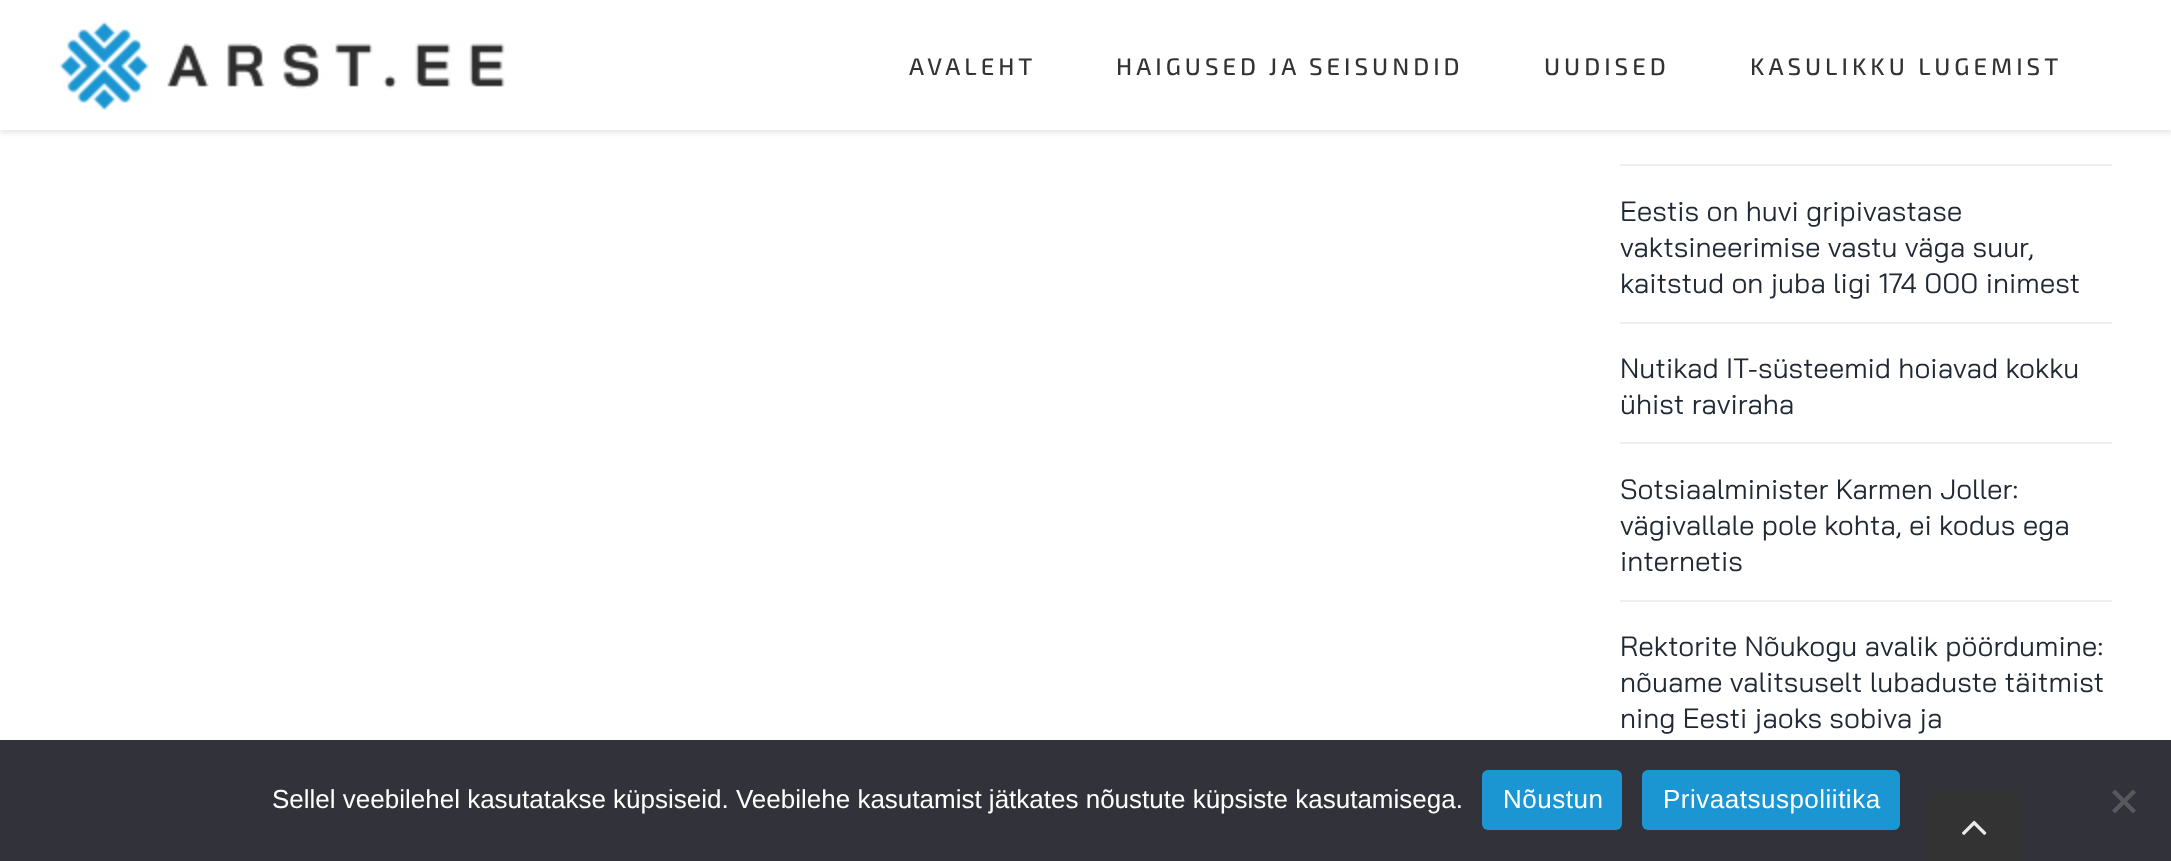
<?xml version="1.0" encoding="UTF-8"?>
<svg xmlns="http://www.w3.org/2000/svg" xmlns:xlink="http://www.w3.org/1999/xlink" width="2171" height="861">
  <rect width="100%" height="100%" fill="#ffffff" />
  <rect y="2" width="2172" height="130" fill="#000000" fill-opacity="0.12" filter="blur(3px)" />
  <rect width="2171" height="130" fill="#ffffff" />
  <image x="60" y="21" width="445" height="89" xlink:href="image1.png" />
  <rect x="1620" y="164" width="492" height="2" fill="#eeeeee" />
  <rect x="1620" y="322" width="492" height="2" fill="#eeeeee" />
  <rect x="1620" y="442" width="492" height="2" fill="#eeeeee" />
  <rect x="1620" y="600" width="492" height="2" fill="#eeeeee" />
  <rect y="740" width="2171" height="121" fill="#32323a" />
  <rect x="1482" y="770" width="140" height="60" rx="6" fill="#1c96d3" />
  <rect x="1642" y="770" width="258" height="60" rx="6" fill="#1c96d3" />
  <path d="M 2133 789.5 l 3 3 l -21 21 l -3 -3 z" fill="#59595d" />
  <path d="M 2112 792.5 l 3 -3 l 21 21 l -3 3 z" fill="#59595d" />
  <path d="M 1938 792 h 72 c 6.5 0 12 5.5 12 12 v 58 h -96 v -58 c 0 -6.5 5.5 -12 12 -12 z" fill="#333334" />
  <image x="1962" y="820" width="25" height="15" xlink:href="image2.png" />
  <text x="909" y="75" style="font-family: 'Exo 2'; font-size: 24px; font-weight: 500; letter-spacing: 4px; fill: #333333">AVALEHT</text>
  <text x="1116" y="75" style="font-family: 'Exo 2'; font-size: 24px; font-weight: 500; letter-spacing: 4px; fill: #333333">HAIGUSED JA SEISUNDID</text>
  <text x="1544" y="75" style="font-family: 'Exo 2'; font-size: 24px; font-weight: 500; letter-spacing: 4px; fill: #333333">UUDISED</text>
  <text x="1750" y="75" style="font-family: 'Exo 2'; font-size: 24px; font-weight: 500; letter-spacing: 4px; fill: #333333">KASULIKKU LUGEMIST</text>
  <text x="1620" y="221" style="font-family: Bai Jamjuree; font-size: 28px; fill: #212934">Eestis on huvi gripivastase</text>
  <text x="1620" y="257" style="font-family: Bai Jamjuree; font-size: 28px; fill: #212934">vaktsineerimise vastu väga suur,</text>
  <text x="1620" y="293" style="font-family: Bai Jamjuree; font-size: 28px; fill: #212934">kaitstud on juba ligi 174 000 inimest</text>
  <text x="1620" y="378" style="font-family: Bai Jamjuree; font-size: 28px; fill: #212934">Nutikad IT-süsteemid hoiavad kokku</text>
  <text x="1620" y="414" style="font-family: Bai Jamjuree; font-size: 28px; fill: #212934">ühist raviraha</text>
  <text x="1620" y="499" style="font-family: Bai Jamjuree; font-size: 28px; fill: #212934">Sotsiaalminister Karmen Joller:</text>
  <text x="1620" y="535" style="font-family: Bai Jamjuree; font-size: 28px; fill: #212934">vägivallale pole kohta, ei kodus ega</text>
  <text x="1620" y="571" style="font-family: Bai Jamjuree; font-size: 28px; fill: #212934">internetis</text>
  <text x="1620" y="656" style="font-family: Bai Jamjuree; font-size: 28px; fill: #212934">Rektorite Nõukogu avalik pöördumine:</text>
  <text x="1620" y="692" style="font-family: Bai Jamjuree; font-size: 28px; fill: #212934">nõuame valitsuselt lubaduste täitmist</text>
  <text x="1620" y="728" style="font-family: Bai Jamjuree; font-size: 28px; fill: #212934">ning Eesti jaoks sobiva ja</text>
  <text x="272" y="808" style="font-family: Liberation Sans; font-size: 26px; fill: #ffffff">Sellel veebilehel kasutatakse küpsiseid. Veebilehe kasutamist jätkates nõustute küpsiste kasutamisega.</text>
  <text x="1503" y="808" style="font-family: Liberation Sans; font-size: 26px; letter-spacing: 0.5px; fill: #ffffff">Nõustun</text>
  <text x="1663" y="808" style="font-family: Liberation Sans; font-size: 26px; letter-spacing: 0.5px; fill: #ffffff">Privaatsuspoliitika</text>
</svg>
